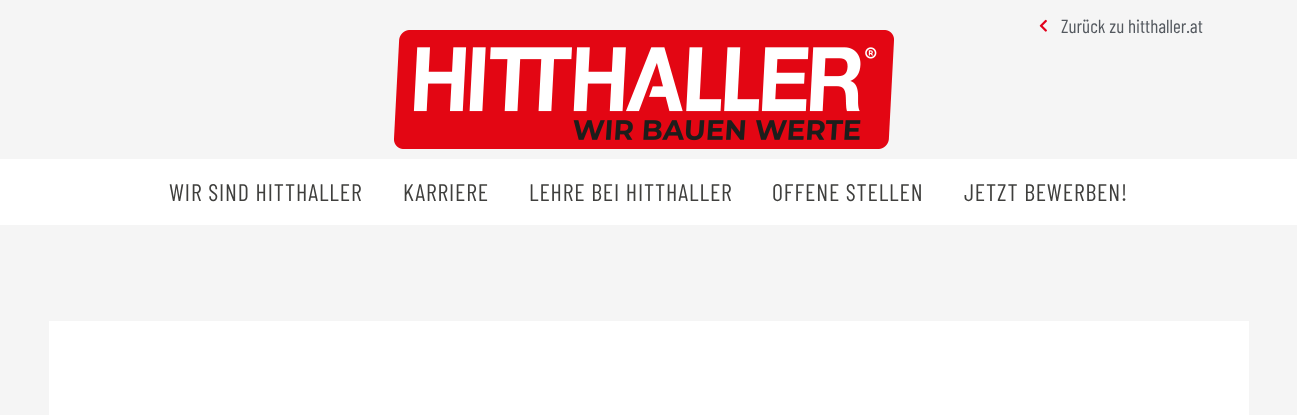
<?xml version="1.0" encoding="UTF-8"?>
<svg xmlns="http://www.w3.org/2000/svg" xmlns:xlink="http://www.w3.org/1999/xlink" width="1297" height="415">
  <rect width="100%" height="100%" fill="#f5f5f5" />
  <image x="1039" y="19" width="8" height="13" xlink:href="image1.png" />
  <image x="394" y="30" width="500" height="119" xlink:href="image2.png" />
  <rect y="159" width="1297" height="66" fill="#ffffff" />
  <rect x="49" y="321" width="1200" height="94" fill="#ffffff" />
  <text x="1061" y="33" style="font-family: Barlow Condensed; font-size: 19px; fill: #54595f">Zurück zu hitthaller.at</text>
  <text x="169" y="201" style="font-family: Barlow Condensed; font-size: 24px; letter-spacing: 0.9px; fill: #3f3f3d">WIR SIND HITTHALLER</text>
  <text x="403" y="201" style="font-family: Barlow Condensed; font-size: 24px; letter-spacing: 0.9px; fill: #3f3f3d">KARRIERE</text>
  <text x="529" y="201" style="font-family: Barlow Condensed; font-size: 24px; letter-spacing: 0.9px; fill: #3f3f3d">LEHRE BEI HITTHALLER</text>
  <text x="772" y="201" style="font-family: Barlow Condensed; font-size: 24px; letter-spacing: 0.9px; fill: #3f3f3d">OFFENE STELLEN</text>
  <text x="964" y="201" style="font-family: Barlow Condensed; font-size: 24px; letter-spacing: 0.9px; fill: #3f3f3d">JETZT BEWERBEN!</text>
</svg>
